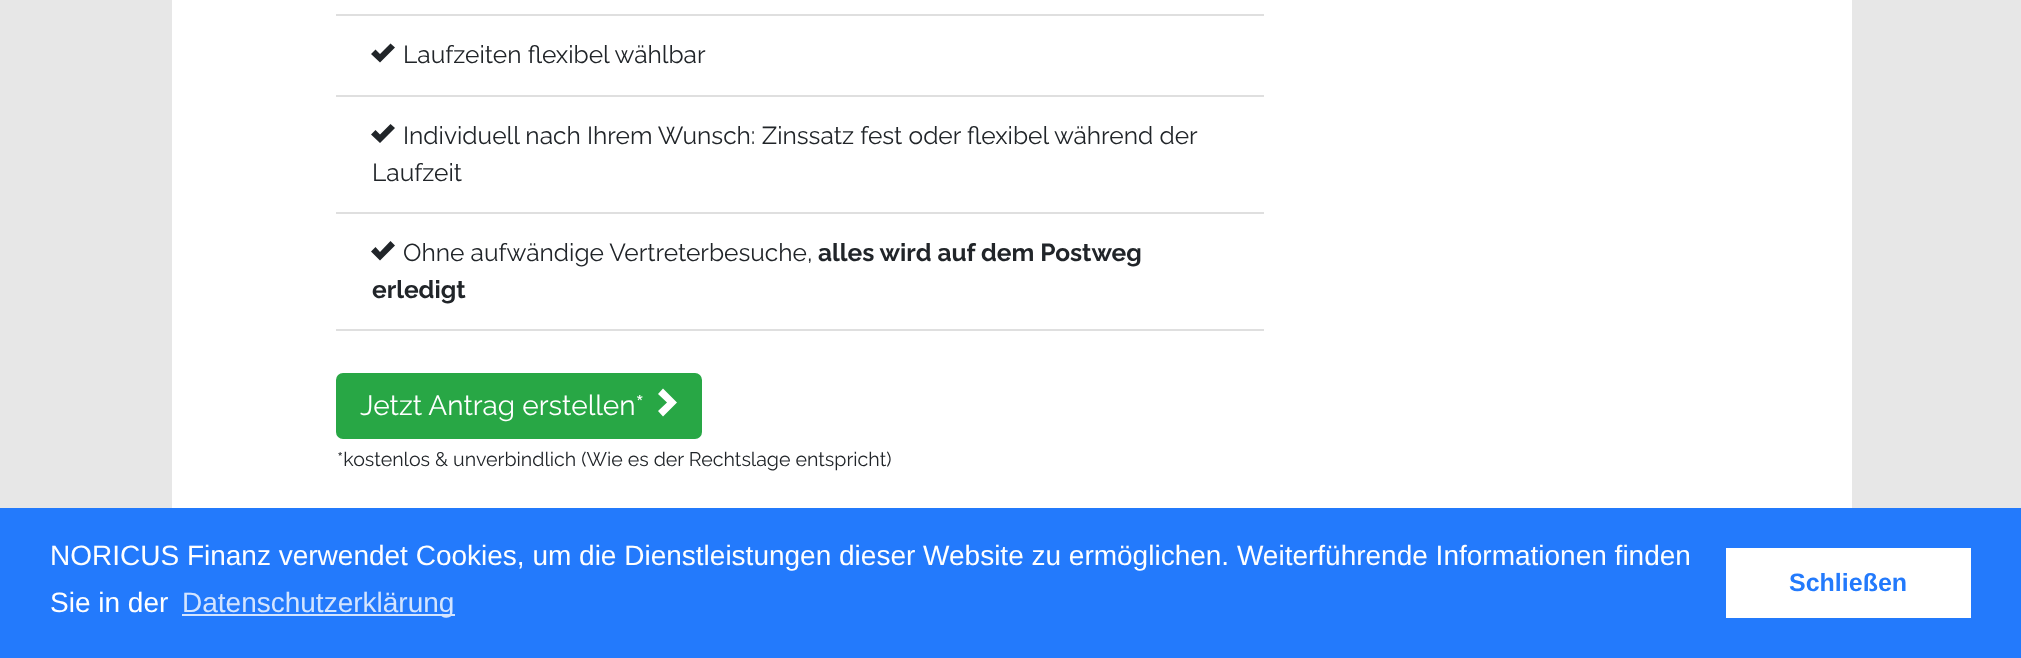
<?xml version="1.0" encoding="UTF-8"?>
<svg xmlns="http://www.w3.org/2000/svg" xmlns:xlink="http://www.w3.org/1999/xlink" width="2021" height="658">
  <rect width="100%" height="100%" fill="#e7e7e7" />
  <rect x="172" width="1680" height="508" fill="#ffffff" />
  <rect x="336" y="14" width="928" height="2" fill="#dfdfdf" />
  <path d="M 390.5 43.5 l 4.5 4 l -15 15 l -9 -8.5 l 4.5 -4.5 l 4.5 4.5 z" fill="#212529" />
  <rect x="336" y="95" width="928" height="2" fill="#dfdfdf" />
  <path d="M 390.5 124 l 4.5 4 l -15 15 l -9 -8.5 l 4.5 -4.5 l 4.5 4.5 z" fill="#212529" />
  <rect x="336" y="212" width="928" height="2" fill="#dfdfdf" />
  <rect x="336" y="329" width="928" height="2" fill="#dfdfdf" />
  <path d="M 390.5 241 l 4.5 4.5 l -15 15 l -9 -9 l 4.5 -4.5 l 4.5 5 z" fill="#212529" />
  <rect x="337" y="374" width="364" height="64" rx="6" fill="#28a745" stroke="#28a745" stroke-width="2" />
  <path d="M 663 388.5 l 14 14 l -14 14 l -5 -5.5 l 9 -8.5 l -9 -8.5 z" fill="#ffffff" />
  <rect y="508" width="2021" height="150" fill="#237afc" />
  <rect x="182" y="614" width="273" height="2" fill="#d3e4fe" />
  <rect x="1726" y="548" width="245" height="70" fill="#ffffff" />
  <text x="403" y="63" style="font-family: Raleway; font-size: 24.5px; fill: #212529">Laufzeiten flexibel wählbar</text>
  <text x="403" y="144" style="font-family: Raleway; font-size: 24.5px; fill: #212529">Individuell nach Ihrem Wunsch: Zinssatz fest oder flexibel während der</text>
  <text x="372" y="181" style="font-family: Raleway; font-size: 24.5px; fill: #212529">Laufzeit</text>
  <text x="403" y="261" style="font-family: Raleway; font-size: 24.5px; fill: #212529">Ohne aufwändige Vertreterbesuche,</text>
  <text x="818" y="261" style="font-family: Raleway; font-size: 24.5px; font-weight: bold; fill: #212529">alles wird auf dem Postweg</text>
  <text x="372" y="298" style="font-family: Raleway; font-size: 24.5px; font-weight: bold; fill: #212529">erledigt</text>
  <text x="360" y="415" style="font-family: Raleway; font-size: 28px; fill: #ffffff">Jetzt Antrag erstellen*</text>
  <text x="337" y="466" style="font-family: Raleway; font-size: 19.6px; fill: #212529">*kostenlos &amp; unverbindlich (Wie es der Rechtslage entspricht)</text>
  <text x="50" y="565" style="font-family: Liberation Sans; font-size: 28px; fill: #ffffff">NORICUS Finanz verwendet Cookies, um die Dienstleistungen dieser Website zu ermöglichen. Weiterführende Informationen finden</text>
  <text x="50" y="612" style="font-family: Liberation Sans; font-size: 28px; fill: #ffffff">Sie in der</text>
  <text x="182" y="612" style="font-family: Liberation Sans; font-size: 28px; fill: #d3e4fe">Datenschutzerklärung</text>
  <text x="1789" y="591" style="font-family: Liberation Sans; font-size: 25px; font-weight: bold; fill: #237afc">Schließen</text>
</svg>
